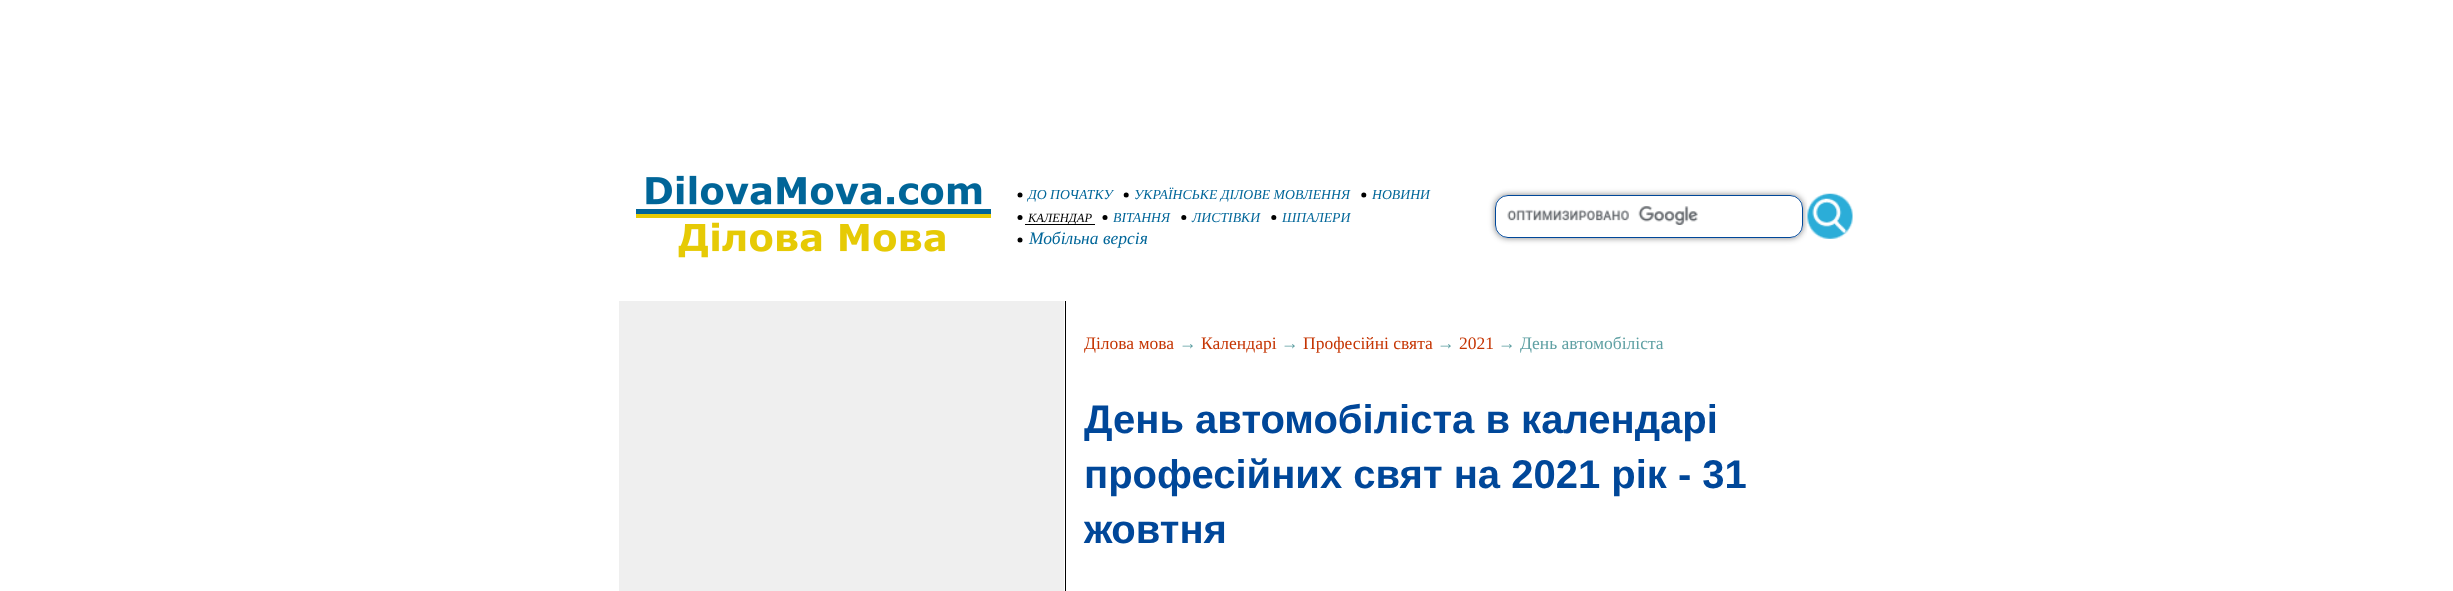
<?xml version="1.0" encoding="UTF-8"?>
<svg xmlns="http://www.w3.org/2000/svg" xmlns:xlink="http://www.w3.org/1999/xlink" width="2453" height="591">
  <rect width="100%" height="100%" fill="#ffffff" />
  <image x="636" y="175" width="355" height="83" xlink:href="image1.png" />
  <circle cx="1020" cy="195" r="2.5" fill="#000000" />
  <circle cx="1126.2" cy="195" r="2.5" fill="#000000" />
  <circle cx="1363.8" cy="195" r="2.5" fill="#000000" />
  <circle cx="1020" cy="217.5" r="2.5" fill="#000000" />
  <rect x="1025" y="224" width="70" height="1" fill="#000000" />
  <circle cx="1105" cy="217.5" r="2.5" fill="#000000" />
  <circle cx="1183.8" cy="217.5" r="2.5" fill="#000000" />
  <circle cx="1273.8" cy="217.5" r="2.5" fill="#000000" />
  <circle cx="1020" cy="240" r="2.5" fill="#000000" />
  <rect x="1495" y="195" width="308" height="43" rx="13" fill="#000000" fill-opacity="0.5" filter="blur(3px)" />
  <rect x="1495" y="195" width="308" height="43" rx="13" fill="#ffffff" />
  <image x="1507" y="206" width="191" height="19" xlink:href="image2.png" />
  <rect x="1495.5" y="195.5" width="307" height="42" rx="12.5" fill="none" stroke="#004799" />
  <image x="1807" y="193" width="46" height="46" xlink:href="image3.png" />
  <rect x="1065" y="301" width="1" height="290" fill="#000000" />
  <rect x="619" y="301" width="445" height="290" fill="#efefef" />
  <text x="1028" y="199" style="font-family: Liberation Serif; font-size: 13.75px; font-style: italic; fill: #006699">ДО ПОЧАТКУ</text>
  <text x="1134" y="199" style="font-family: Liberation Serif; font-size: 13.75px; font-style: italic; fill: #006699">УКРАЇНСЬКЕ ДІЛОВЕ МОВЛЕННЯ</text>
  <text x="1372" y="199" style="font-family: Liberation Serif; font-size: 13.75px; font-style: italic; fill: #006699">НОВИНИ</text>
  <text x="1028" y="222" style="font-family: Liberation Serif; font-size: 12.5px; font-style: italic; fill: #000000">КАЛЕНДАР</text>
  <text x="1113" y="222" style="font-family: Liberation Serif; font-size: 13.75px; font-style: italic; fill: #006699">ВІТАННЯ</text>
  <text x="1192" y="222" style="font-family: Liberation Serif; font-size: 13.75px; font-style: italic; fill: #006699">ЛИСТІВКИ</text>
  <text x="1282" y="222" style="font-family: Liberation Serif; font-size: 13.75px; font-style: italic; fill: #006699">ШПАЛЕРИ</text>
  <text x="1029" y="244" style="font-family: Liberation Serif; font-size: 17.5px; font-style: italic; fill: #006699">Мобільна версія</text>
  <text x="1084" y="349" style="font-family: Liberation Serif; font-size: 17.5px; fill: #c53503">Ділова мова</text>
  <text x="1179" y="349" style="font-family: Liberation Serif; font-size: 17.5px; fill: #5fa0a3">→</text>
  <text x="1201" y="349" style="font-family: Liberation Serif; font-size: 17.5px; fill: #c53503">Календарі</text>
  <text x="1281" y="349" style="font-family: Liberation Serif; font-size: 17.5px; fill: #5fa0a3">→</text>
  <text x="1303" y="349" style="font-family: Liberation Serif; font-size: 17.5px; fill: #c53503">Професійні свята</text>
  <text x="1437" y="349" style="font-family: Liberation Serif; font-size: 17.5px; fill: #5fa0a3">→</text>
  <text x="1459" y="349" style="font-family: Liberation Serif; font-size: 17.5px; fill: #c53503">2021</text>
  <text x="1498" y="349" style="font-family: Liberation Serif; font-size: 17.5px; fill: #5fa0a3">→ День автомобіліста</text>
  <text x="1084" y="433" style="font-family: Liberation Sans; font-size: 40px; font-weight: bold; fill: #004799">День автомобіліста в календарі</text>
  <text x="1084" y="488" style="font-family: Liberation Sans; font-size: 40px; font-weight: bold; fill: #004799">професійних свят на 2021 рік - 31</text>
  <text x="1084" y="543" style="font-family: Liberation Sans; font-size: 40px; font-weight: bold; fill: #004799">жовтня</text>
</svg>
